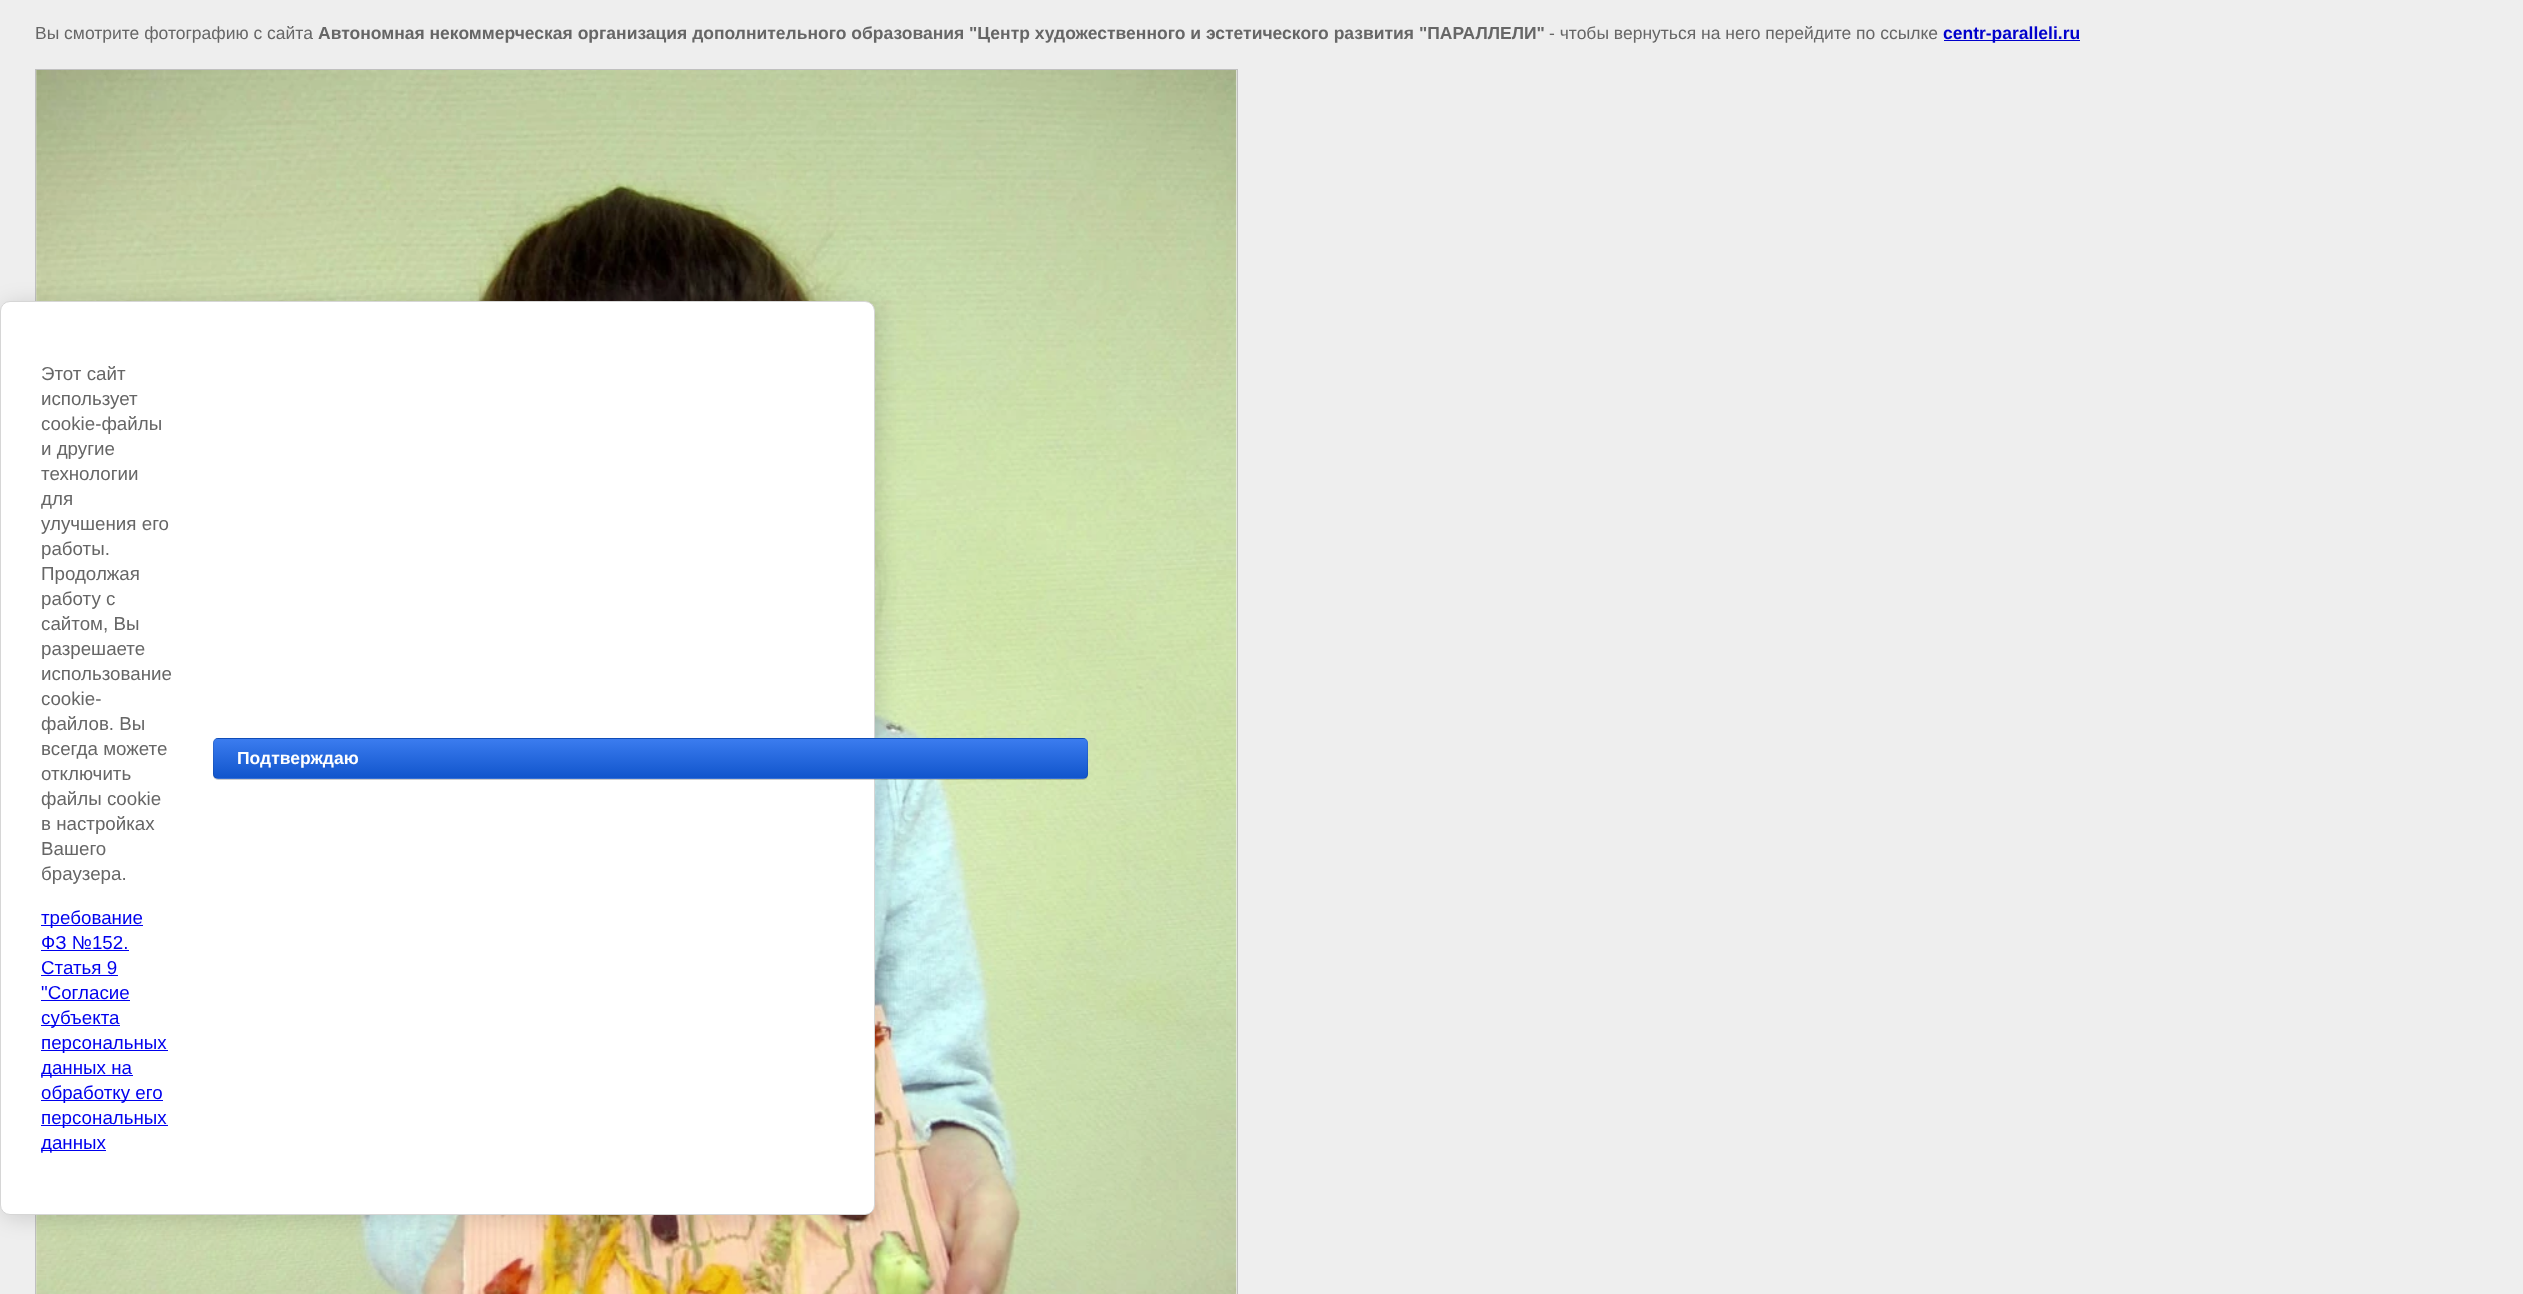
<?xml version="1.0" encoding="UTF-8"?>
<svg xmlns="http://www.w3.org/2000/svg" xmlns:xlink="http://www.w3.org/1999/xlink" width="2523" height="1294">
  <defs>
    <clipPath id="clip1"><rect x="213" y="738" width="875" height="41" rx="5" /></clipPath>
    <linearGradient id="g1" gradientUnits="userSpaceOnUse" x1="650" y1="700" x2="650" y2="739"><stop offset="0" stop-color="#3b7cef" /><stop offset="1" stop-color="#1155cc" /></linearGradient>
    <linearGradient id="g2" gradientUnits="userSpaceOnUse" x1="650" y1="739" x2="650" y2="778"><stop offset="0" stop-color="#3b7cef" /><stop offset="1" stop-color="#1155cc" /></linearGradient>
    <linearGradient id="g3" gradientUnits="userSpaceOnUse" x1="650" y1="778" x2="650" y2="816"><stop offset="0" stop-color="#3b7cef" /><stop offset="1" stop-color="#1155cc" /></linearGradient>
  </defs>
  <rect width="100%" height="100%" fill="#eeeeee" />
  <rect x="1944" y="40" width="136" height="1" fill="#0000cc" />
  <rect x="35.5" y="69.5" width="1202" height="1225" fill="none" stroke="#c0c0c0" />
  <image x="36" y="70" width="1201" height="1224" xlink:href="image1.png" />
  <rect x="3" y="304" width="875" height="914" rx="10" fill="#000000" fill-opacity="0.14" filter="blur(11px)" />
  <rect x="0.5" y="301.5" width="874" height="913" rx="9.5" fill="#ffffff" stroke="#d6d6d6" />
  <rect x="41" y="925" width="102" height="1" fill="#0000ee" />
  <rect x="41" y="950" width="88" height="1" fill="#0000ee" />
  <rect x="41" y="975" width="77" height="1" fill="#0000ee" />
  <rect x="41" y="1000" width="89" height="1" fill="#0000ee" />
  <rect x="41" y="1025" width="79" height="1" fill="#0000ee" />
  <rect x="41" y="1050" width="127" height="1" fill="#0000ee" />
  <rect x="41" y="1075" width="92" height="1" fill="#0000ee" />
  <rect x="41" y="1100" width="122" height="1" fill="#0000ee" />
  <rect x="41" y="1125" width="127" height="1" fill="#0000ee" />
  <rect x="41" y="1150" width="65" height="1" fill="#0000ee" />
  <rect x="213" y="739" width="875" height="41" rx="5" fill="#000000" fill-opacity="0.2" filter="blur(0.5px)" />
  <g clip-path="url(#clip1)">
    <rect x="213" y="738" width="875" height="1" fill="url(#g1)" />
    <rect x="213" y="739" width="875" height="39" fill="url(#g2)" />
    <rect x="213" y="778" width="875" height="1" fill="url(#g3)" />
  </g>
  <rect x="213.5" y="738.5" width="874" height="40" rx="4.5" fill="none" stroke="#000000" stroke-opacity="0.1" />
  <text x="35" y="39" style="font-family: Liberation Sans; font-size: 17.5px; fill: #666666">Вы смотрите фотографию с сайта</text>
  <text x="318" y="39" style="font-family: Liberation Sans; font-size: 17.5px; font-weight: bold; fill: #666666">Автономная некоммерческая организация дополнительного образования "Центр художественного и эстетического развития "ПАРАЛЛЕЛИ"</text>
  <text x="1549" y="39" style="font-family: Liberation Sans; font-size: 17.5px; fill: #666666">- чтобы вернуться на него перейдите по ссылке</text>
  <text x="1943" y="39" style="font-family: Liberation Sans; font-size: 17.5px; font-weight: bold; fill: #0000cc">centr-paralleli.ru</text>
  <text x="41" y="380" style="font-family: Liberation Sans; font-size: 18.75px; fill: #666666">Этот сайт</text>
  <text x="41" y="405" style="font-family: Liberation Sans; font-size: 18.75px; fill: #666666">использует</text>
  <text x="41" y="430" style="font-family: Liberation Sans; font-size: 18.75px; fill: #666666">cookie-файлы</text>
  <text x="41" y="455" style="font-family: Liberation Sans; font-size: 18.75px; fill: #666666">и другие</text>
  <text x="41" y="480" style="font-family: Liberation Sans; font-size: 18.75px; fill: #666666">технологии</text>
  <text x="41" y="505" style="font-family: Liberation Sans; font-size: 18.75px; fill: #666666">для</text>
  <text x="41" y="530" style="font-family: Liberation Sans; font-size: 18.75px; fill: #666666">улучшения его</text>
  <text x="41" y="555" style="font-family: Liberation Sans; font-size: 18.75px; fill: #666666">работы.</text>
  <text x="41" y="580" style="font-family: Liberation Sans; font-size: 18.75px; fill: #666666">Продолжая</text>
  <text x="41" y="605" style="font-family: Liberation Sans; font-size: 18.75px; fill: #666666">работу с</text>
  <text x="41" y="630" style="font-family: Liberation Sans; font-size: 18.75px; fill: #666666">сайтом, Вы</text>
  <text x="41" y="655" style="font-family: Liberation Sans; font-size: 18.75px; fill: #666666">разрешаете</text>
  <text x="41" y="680" style="font-family: Liberation Sans; font-size: 18.75px; fill: #666666">использование</text>
  <text x="41" y="705" style="font-family: Liberation Sans; font-size: 18.75px; fill: #666666">cookie-</text>
  <text x="41" y="730" style="font-family: Liberation Sans; font-size: 18.75px; fill: #666666">файлов. Вы</text>
  <text x="41" y="755" style="font-family: Liberation Sans; font-size: 18.75px; fill: #666666">всегда можете</text>
  <text x="41" y="780" style="font-family: Liberation Sans; font-size: 18.75px; fill: #666666">отключить</text>
  <text x="41" y="805" style="font-family: Liberation Sans; font-size: 18.75px; fill: #666666">файлы cookie</text>
  <text x="41" y="830" style="font-family: Liberation Sans; font-size: 18.75px; fill: #666666">в настройках</text>
  <text x="41" y="855" style="font-family: Liberation Sans; font-size: 18.75px; fill: #666666">Вашего</text>
  <text x="41" y="880" style="font-family: Liberation Sans; font-size: 18.75px; fill: #666666">браузера.</text>
  <text x="41" y="924" style="font-family: Liberation Sans; font-size: 18.75px; fill: #0000ee">требование</text>
  <text x="41" y="949" style="font-family: Liberation Sans; font-size: 18.75px; fill: #0000ee">ФЗ №152.</text>
  <text x="41" y="974" style="font-family: Liberation Sans; font-size: 18.75px; fill: #0000ee">Статья 9</text>
  <text x="41" y="999" style="font-family: Liberation Sans; font-size: 18.75px; fill: #0000ee">"Согласие</text>
  <text x="41" y="1024" style="font-family: Liberation Sans; font-size: 18.75px; fill: #0000ee">субъекта</text>
  <text x="41" y="1049" style="font-family: Liberation Sans; font-size: 18.75px; fill: #0000ee">персональных</text>
  <text x="41" y="1074" style="font-family: Liberation Sans; font-size: 18.75px; fill: #0000ee">данных на</text>
  <text x="41" y="1099" style="font-family: Liberation Sans; font-size: 18.75px; fill: #0000ee">обработку его</text>
  <text x="41" y="1124" style="font-family: Liberation Sans; font-size: 18.75px; fill: #0000ee">персональных</text>
  <text x="41" y="1149" style="font-family: Liberation Sans; font-size: 18.75px; fill: #0000ee">данных</text>
  <text x="237" y="764" style="font-family: Liberation Sans; font-size: 17.5px; font-weight: bold; fill: #ffffff">Подтверждаю</text>
</svg>
